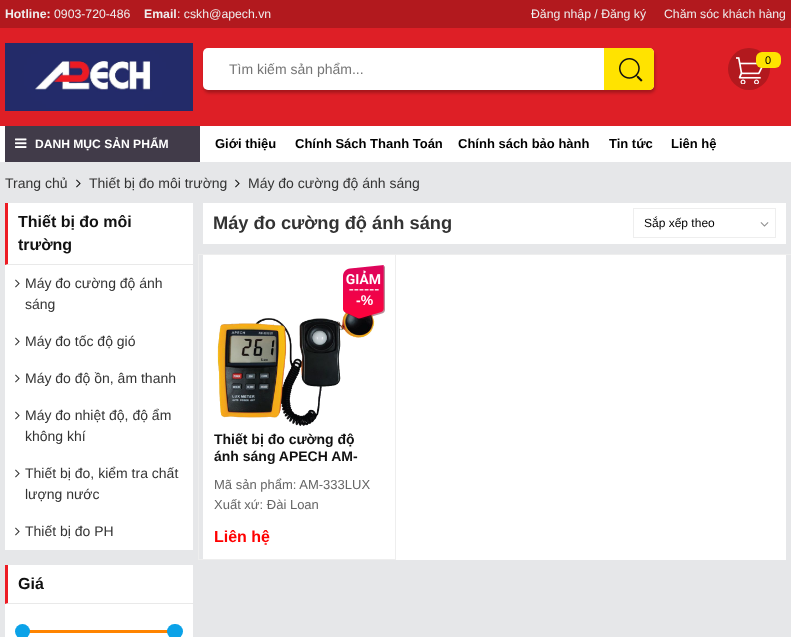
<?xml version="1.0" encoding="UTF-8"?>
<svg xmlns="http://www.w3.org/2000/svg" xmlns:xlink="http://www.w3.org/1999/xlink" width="791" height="637">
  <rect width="100%" height="100%" fill="#e6e7e9" />
  <rect y="28" width="791" height="98" fill="#de1f26" />
  <rect width="791" height="28" fill="#b2191e" />
  <image x="5" y="43" width="188" height="68" xlink:href="image1.png" />
  <circle cx="749" cy="69" r="21" fill="#b2191e" />
  <image x="736" y="57" width="27" height="27" xlink:href="image2.png" />
  <rect x="756" y="52" width="25" height="16" rx="6" fill="#ffe300" />
  <rect x="204" y="51" width="451" height="42" rx="5" fill="#000000" fill-opacity="0.25" filter="blur(1.5px)" />
  <rect x="203" y="48" width="451" height="42" rx="5" fill="#ffffff" />
  <path d="M 604 48 h 45 c 3 0 5 2 5 5 v 32 c 0 3 -2 5 -5 5 h -45 z" fill="#ffe300" />
  <image x="619" y="58" width="24" height="24" xlink:href="image3.png" />
  <rect y="126" width="791" height="36" fill="#ffffff" />
  <rect x="5" y="126" width="195" height="36" fill="#413b49" />
  <image x="15" y="138" width="12" height="10" xlink:href="image4.png" />
  <image x="76" y="179" width="5" height="9" xlink:href="image5.png" />
  <image x="235" y="179" width="5" height="9" xlink:href="image5.png" />
  <rect x="5" y="203" width="188" height="347" fill="#ffffff" />
  <path d="M 193 265 h -188 l 3 -1 h 185 z" fill="#e9e9e9" />
  <path d="M 5 265 v -62 h 3 v 61 z" fill="#ed1c24" />
  <image x="15" y="279" width="5" height="9" xlink:href="image6.png" />
  <image x="15" y="337" width="5" height="9" xlink:href="image6.png" />
  <image x="15" y="374" width="5" height="9" xlink:href="image6.png" />
  <image x="15" y="411" width="5" height="9" xlink:href="image6.png" />
  <image x="15" y="469" width="5" height="9" xlink:href="image6.png" />
  <image x="15" y="527" width="5" height="9" xlink:href="image6.png" />
  <rect x="5" y="565" width="188" height="72" fill="#ffffff" />
  <path d="M 193 604 h -188 l 3 -1 h 185 z" fill="#e9e9e9" />
  <path d="M 5 604 v -39 h 3 v 38 z" fill="#ed1c24" />
  <rect x="23" y="630" width="152" height="3" fill="#ff8400" />
  <circle cx="22.5" cy="631.5" r="7.5" fill="#0ba2e8" />
  <rect x="167" y="624" width="16" height="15" rx="7.5" fill="#0ba2e8" />
  <rect x="203" y="203" width="583" height="41" fill="#ffffff" />
  <rect x="633.5" y="208.5" width="142" height="29" fill="none" stroke="#eeeeee" />
  <image x="760" y="222" width="9" height="5" xlink:href="image7.png" />
  <rect x="203" y="255" width="583" height="305" fill="#ffffff" />
  <rect x="198" y="254" width="593" height="1" fill="#eeeeee" />
  <rect x="198" y="254" width="1" height="306" fill="#eeeeee" />
  <rect x="395" y="255" width="1" height="305" fill="#eeeeee" />
  <rect x="199" y="559" width="197" height="1" fill="#eeeeee" />
  <image x="217" y="307" width="158" height="119" xlink:href="image9.png" />
  <image x="343" y="265" width="42" height="54" xlink:href="image8.png" />
  <text x="5" y="18" style="font-family: Liberation Sans; font-size: 12.25px; font-weight: bold; fill: #eeeeee">Hotline:</text>
  <text x="54" y="18" style="font-family: Liberation Sans; font-size: 12.25px; fill: #eeeeee">0903-720-486</text>
  <text x="144" y="18" style="font-family: Liberation Sans; font-size: 12.25px; font-weight: bold; fill: #eeeeee">Email</text>
  <text x="177" y="18" style="font-family: Liberation Sans; font-size: 12.25px; fill: #eeeeee">: cskh@apech.vn</text>
  <text x="531" y="18" style="font-family: Liberation Sans; font-size: 12.25px; fill: #eeeeee">Đăng nhập / Đăng ký</text>
  <text x="664" y="18" style="font-family: Liberation Sans; font-size: 12.25px; fill: #eeeeee">Chăm sóc khách hàng</text>
  <text x="765" y="64" style="font-family: Liberation Sans; font-size: 11px; fill: #000000">0</text>
  <text x="229" y="74" style="font-family: Liberation Sans; font-size: 14px; fill: #757575">Tìm kiếm sản phẩm...</text>
  <text x="35" y="148" style="font-family: Liberation Sans; font-size: 12.1px; font-weight: bold; fill: #ffffff">DANH MỤC SẢN PHẨM</text>
  <text x="215" y="148" style="font-family: Liberation Sans; font-size: 13px; font-weight: bold; fill: #000000">Giới thiệu</text>
  <text x="295" y="148" style="font-family: Liberation Sans; font-size: 13px; font-weight: bold; fill: #000000">Chính Sách Thanh Toán</text>
  <text x="458" y="148" style="font-family: Liberation Sans; font-size: 13px; font-weight: bold; fill: #000000">Chính sách bảo hành</text>
  <text x="609" y="148" style="font-family: Liberation Sans; font-size: 13px; font-weight: bold; fill: #000000">Tin tức</text>
  <text x="671" y="148" style="font-family: Liberation Sans; font-size: 13px; font-weight: bold; fill: #000000">Liên hệ</text>
  <text x="5" y="188" style="font-family: Liberation Sans; font-size: 14px; fill: #333333">Trang chủ</text>
  <text x="89" y="188" style="font-family: Liberation Sans; font-size: 14px; fill: #333333">Thiết bị đo môi trường</text>
  <text x="248" y="188" style="font-family: Liberation Sans; font-size: 14px; fill: #333333">Máy đo cường độ ánh sáng</text>
  <text x="18" y="227" style="font-family: Liberation Sans; font-size: 16px; font-weight: bold; fill: #111111">Thiết bị đo môi</text>
  <text x="18" y="250" style="font-family: Liberation Sans; font-size: 16px; font-weight: bold; fill: #111111">trường</text>
  <text x="25" y="288" style="font-family: Liberation Sans; font-size: 14px; fill: #333333">Máy đo cường độ ánh</text>
  <text x="25" y="309" style="font-family: Liberation Sans; font-size: 14px; fill: #333333">sáng</text>
  <text x="25" y="346" style="font-family: Liberation Sans; font-size: 14px; fill: #333333">Máy đo tốc độ gió</text>
  <text x="25" y="383" style="font-family: Liberation Sans; font-size: 14px; fill: #333333">Máy đo độ ồn, âm thanh</text>
  <text x="25" y="420" style="font-family: Liberation Sans; font-size: 14px; fill: #333333">Máy đo nhiệt độ, độ ẩm</text>
  <text x="25" y="441" style="font-family: Liberation Sans; font-size: 14px; fill: #333333">không khí</text>
  <text x="25" y="478" style="font-family: Liberation Sans; font-size: 14px; fill: #333333">Thiết bị đo, kiểm tra chất</text>
  <text x="25" y="499" style="font-family: Liberation Sans; font-size: 14px; fill: #333333">lượng nước</text>
  <text x="25" y="536" style="font-family: Liberation Sans; font-size: 14px; fill: #333333">Thiết bị đo PH</text>
  <text x="18" y="589" style="font-family: Liberation Sans; font-size: 16px; font-weight: bold; fill: #111111">Giá</text>
  <text x="213" y="229" style="font-family: Liberation Sans; font-size: 18.25px; font-weight: bold; fill: #333333">Máy đo cường độ ánh sáng</text>
  <text x="644" y="227" style="font-family: Liberation Sans; font-size: 12px; fill: #000000">Sắp xếp theo</text>
  <text x="356" y="305" style="font-family: Liberation Sans; font-size: 14px; font-weight: bold; fill: #ffffff">-%</text>
  <text x="214" y="444" style="font-family: Liberation Sans; font-size: 14px; font-weight: bold; fill: #111111">Thiết bị đo cường độ</text>
  <text x="214" y="461" style="font-family: Liberation Sans; font-size: 14px; font-weight: bold; fill: #111111">ánh sáng APECH AM-</text>
  <text x="214" y="489" style="font-family: Liberation Sans; font-size: 13px; fill: #666666">Mã sản phẩm: AM-333LUX</text>
  <text x="214" y="509" style="font-family: Liberation Sans; font-size: 13px; fill: #666666">Xuất xứ: Đài Loan</text>
  <text x="214" y="542" style="font-family: Liberation Sans; font-size: 16px; font-weight: bold; fill: #ff0000">Liên hệ</text>
</svg>
